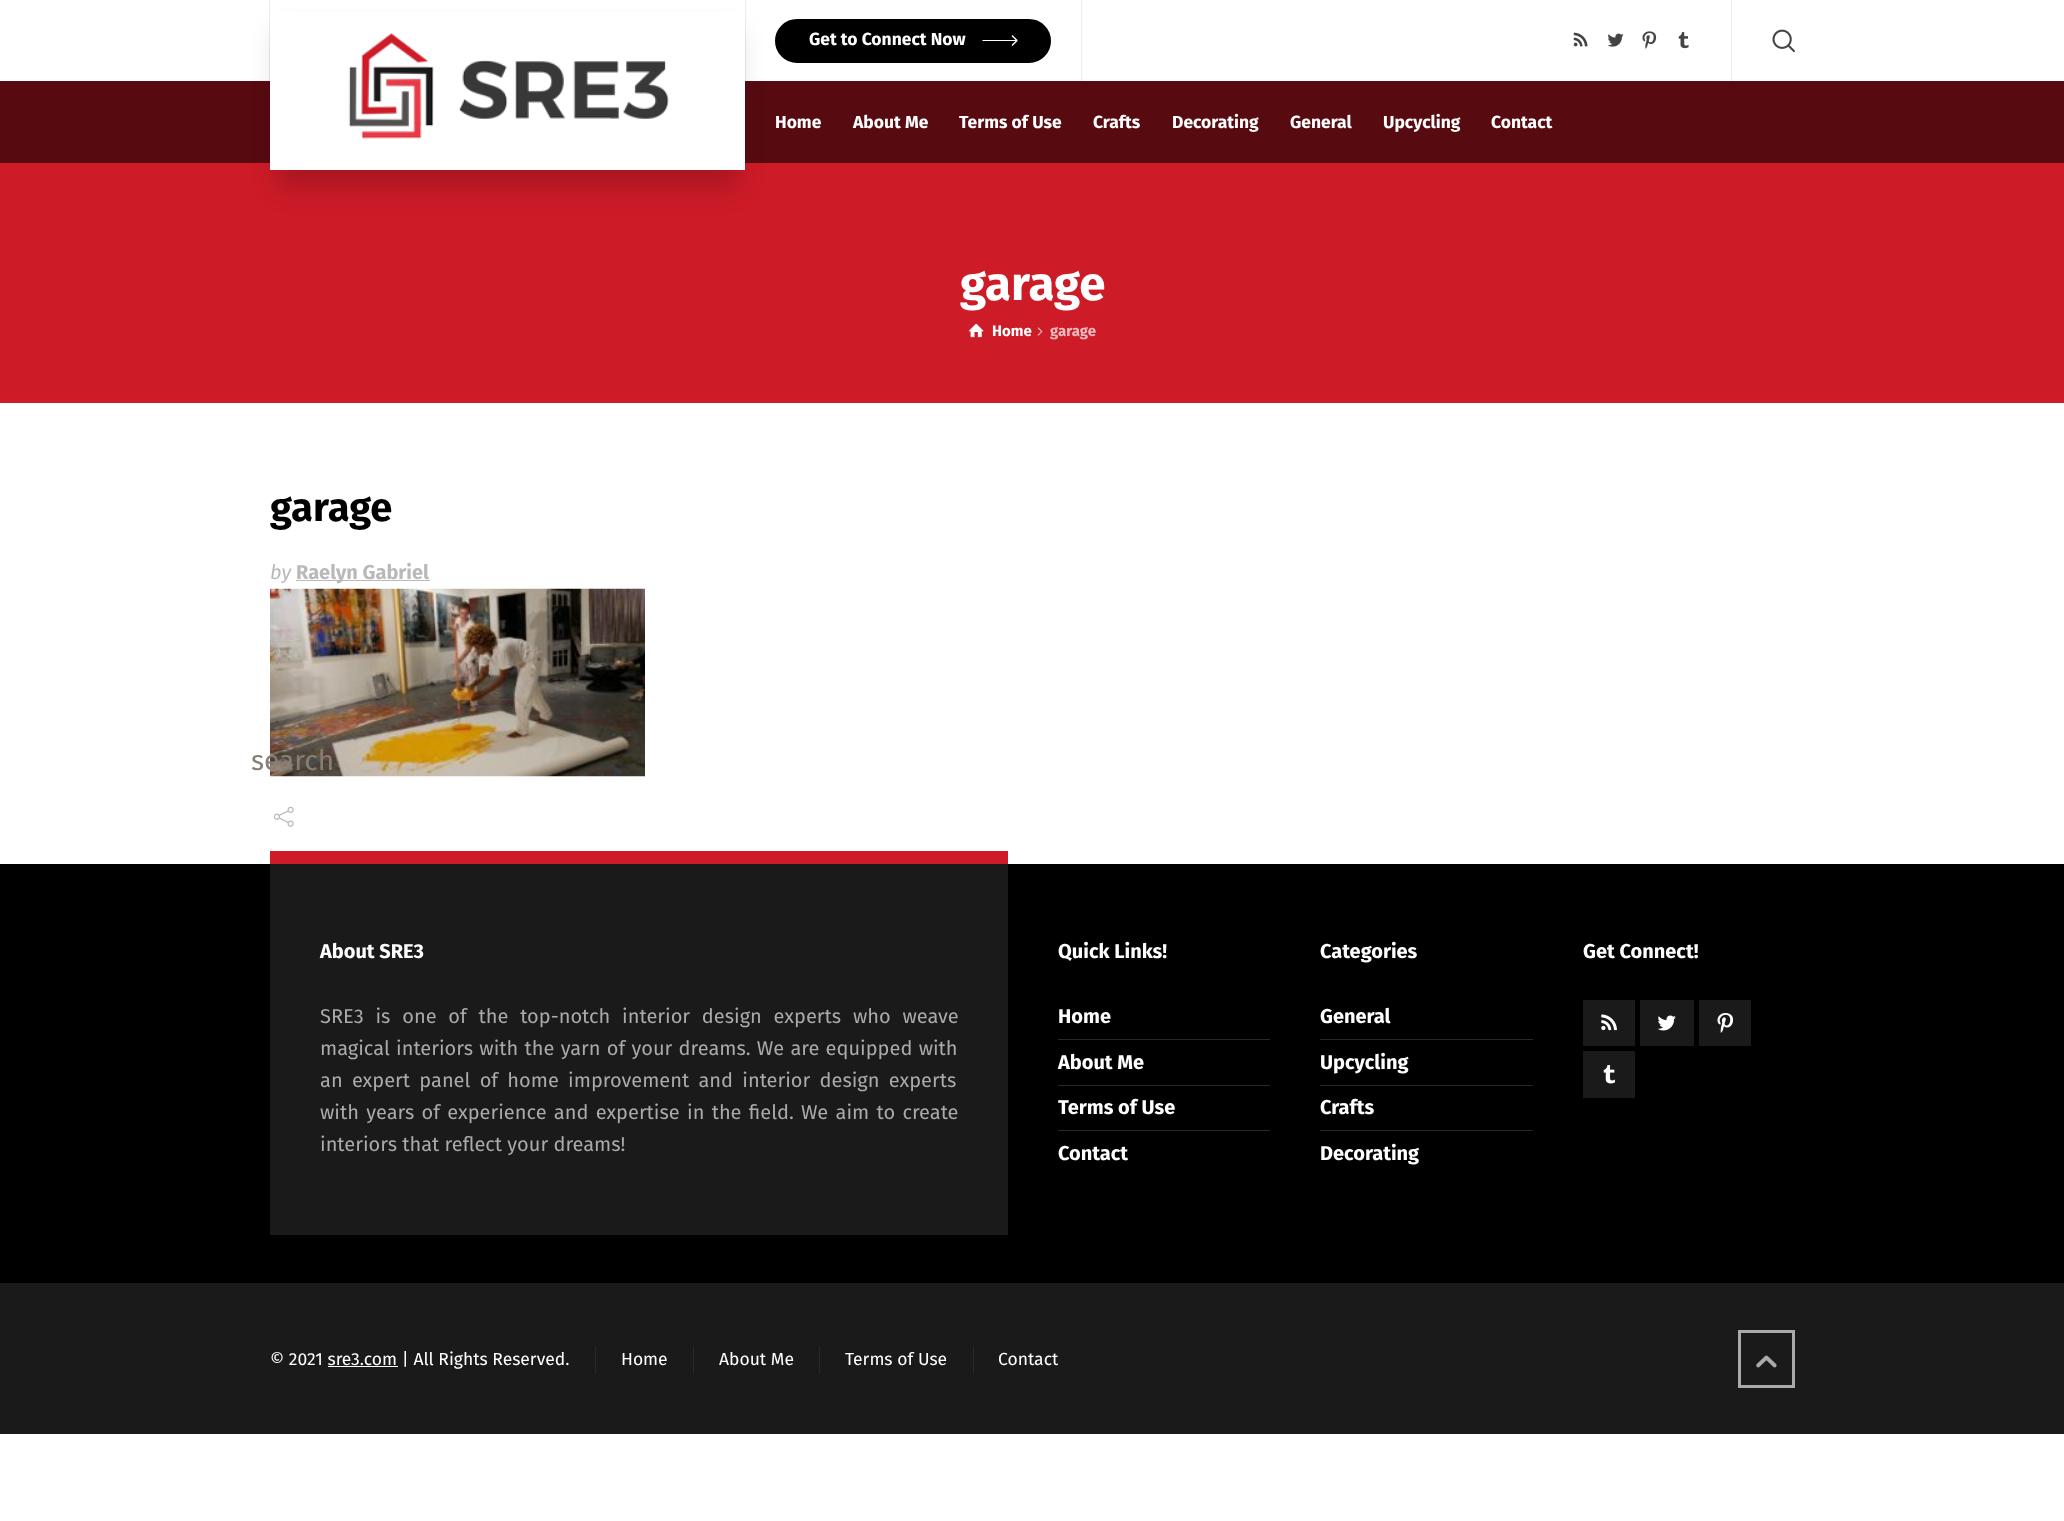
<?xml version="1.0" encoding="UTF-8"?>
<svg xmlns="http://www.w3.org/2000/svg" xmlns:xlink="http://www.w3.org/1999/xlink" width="2064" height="1521">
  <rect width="100%" height="100%" fill="#ffffff" />
  <rect y="81" width="2064" height="82" fill="#570b11" />
  <rect y="163" width="2064" height="240" fill="#ce1b28" />
  <rect x="276" y="31" width="463" height="158" fill="#000000" fill-opacity="0.17" filter="blur(12px)" />
  <rect x="270" y="12" width="475" height="158" fill="#ffffff" />
  <rect x="269" width="1" height="81" fill="#000000" fill-opacity="0.07" />
  <image x="348" y="33" width="321" height="106" xlink:href="image1.png" />
  <rect x="745" width="1" height="81" fill="#000000" fill-opacity="0.07" />
  <rect x="1081" width="1" height="81" fill="#ededed" />
  <rect x="776.5" y="20.5" width="273" height="41" rx="20.5" fill="#000000" stroke="#000000" stroke-width="3" />
  <path d="M 1011.5 45 l 1 1 l 5 -5 v -1 l -5 -5 l -1 1 l 4 4 h -33 v 1 h 33 z" fill="#ffffff" />
  <rect x="1731" width="1" height="81" fill="#ededed" />
  <image x="1573" y="32" width="15" height="15" xlink:href="image2.png" />
  <image x="1607" y="33" width="17" height="14" xlink:href="image3.png" />
  <image x="1642" y="31" width="15" height="18" xlink:href="image4.png" />
  <image x="1678" y="32" width="11" height="17" xlink:href="image5.png" />
  <image x="1772" y="29" width="23" height="24" xlink:href="image6.png" />
  <image x="968" y="323" width="16" height="15" xlink:href="image7.png" />
  <image x="1037" y="327" width="6" height="9" xlink:href="image8.png" />
  <rect x="296" y="580" width="134" height="1" fill="#b9b9b9" />
  <image x="270" y="588" width="375" height="189" xlink:href="image9.png" />
  <image x="273" y="806" width="21" height="21" xlink:href="image10.png" />
  <rect y="864" width="2064" height="419" fill="#000000" />
  <rect x="270" y="864" width="738" height="371" fill="#1a1a1a" />
  <rect x="270" y="851" width="738" height="13" fill="#ce1b28" />
  <rect x="1058" y="1039" width="212" height="1" fill="#282828" />
  <rect x="1058" y="1085" width="212" height="1" fill="#282828" />
  <rect x="1058" y="1130" width="212" height="1" fill="#282828" />
  <rect x="1320" y="1039" width="213" height="1" fill="#282828" />
  <rect x="1320" y="1085" width="213" height="1" fill="#282828" />
  <rect x="1320" y="1130" width="213" height="1" fill="#282828" />
  <rect x="1583" y="1000" width="52" height="46" fill="#1a1a1a" />
  <image x="1601" y="1014" width="16" height="17" xlink:href="image11.png" />
  <rect x="1640" y="1000" width="54" height="46" fill="#1a1a1a" />
  <image x="1657" y="1015" width="19" height="16" xlink:href="image12.png" />
  <rect x="1699" y="1000" width="52" height="46" fill="#1a1a1a" />
  <image x="1717" y="1013" width="17" height="20" xlink:href="image13.png" />
  <rect x="1583" y="1051" width="52" height="47" fill="#1a1a1a" />
  <image x="1603" y="1065" width="12" height="19" xlink:href="image14.png" />
  <rect y="1283" width="2064" height="151" fill="#1a1a1a" />
  <rect x="328" y="1366" width="70" height="1" fill="#ffffff" />
  <rect x="595" y="1346" width="1" height="28" fill="#282828" />
  <rect x="693" y="1346" width="1" height="28" fill="#282828" />
  <rect x="819" y="1346" width="1" height="28" fill="#282828" />
  <rect x="973" y="1346" width="1" height="28" fill="#282828" />
  <rect x="1739.5" y="1331.5" width="54" height="55" fill="none" stroke="#aaaaaa" stroke-width="3" />
  <image x="1756" y="1355" width="21" height="13" xlink:href="image15.png" />
  <text x="809" y="45" style="font-family: Fira Sans; font-size: 17.5px; font-weight: bold; fill: #ffffff">Get to Connect Now</text>
  <text x="775" y="128" style="font-family: Fira Sans; font-size: 17.5px; font-weight: bold; fill: #ffffff">Home</text>
  <text x="853" y="128" style="font-family: Fira Sans; font-size: 17.5px; font-weight: bold; fill: #ffffff">About Me</text>
  <text x="959" y="128" style="font-family: Fira Sans; font-size: 17.5px; font-weight: bold; fill: #ffffff">Terms of Use</text>
  <text x="1093" y="128" style="font-family: Fira Sans; font-size: 17.5px; font-weight: bold; fill: #ffffff">Crafts</text>
  <text x="1172" y="128" style="font-family: Fira Sans; font-size: 17.5px; font-weight: bold; fill: #ffffff">Decorating</text>
  <text x="1290" y="128" style="font-family: Fira Sans; font-size: 17.5px; font-weight: bold; fill: #ffffff">General</text>
  <text x="1383" y="128" style="font-family: Fira Sans; font-size: 17.5px; font-weight: bold; fill: #ffffff">Upcycling</text>
  <text x="1491" y="128" style="font-family: Fira Sans; font-size: 17.5px; font-weight: bold; fill: #ffffff">Contact</text>
  <text x="960" y="300" style="font-family: Fira Sans; font-size: 47.5px; font-weight: bold; fill: #ffffff">garage</text>
  <text x="992" y="336" style="font-family: Fira Sans; font-size: 15px; font-weight: bold; fill: #ffffff">Home</text>
  <text x="1050" y="336" style="font-family: Fira Sans; font-size: 15px; font-weight: bold; fill: #f0bbbf">garage</text>
  <text x="270" y="521" style="font-family: Fira Sans; font-size: 40px; font-weight: bold; fill: #000000">garage</text>
  <text x="270" y="579" style="font-family: Fira Sans; font-size: 20px; font-style: italic; fill: #b9b9b9">by</text>
  <text x="296" y="579" style="font-family: Fira Sans; font-size: 20px; font-weight: bold; fill: #b9b9b9">Raelyn Gabriel</text>
  <text x="320" y="958" style="font-family: Fira Sans; font-size: 20px; font-weight: bold; fill: #ffffff">About SRE3</text>
  <text x="320" y="1023" word-spacing="6.5" style="font-family: Fira Sans; font-size: 20px; fill: #aaaaaa">SRE3 is one of the top-notch interior design experts who weave</text>
  <text x="320" y="1055" word-spacing="1" style="font-family: Fira Sans; font-size: 20px; fill: #aaaaaa">magical interiors with the yarn of your dreams. We are equipped with</text>
  <text x="320" y="1087" word-spacing="4" style="font-family: Fira Sans; font-size: 20px; fill: #aaaaaa">an expert panel of home improvement and interior design experts</text>
  <text x="320" y="1119" word-spacing="2" style="font-family: Fira Sans; font-size: 20px; fill: #aaaaaa">with years of experience and expertise in the field. We aim to create</text>
  <text x="320" y="1151" style="font-family: Fira Sans; font-size: 20px; fill: #aaaaaa">interiors that reflect your dreams!</text>
  <text x="1058" y="958" style="font-family: Fira Sans; font-size: 20px; font-weight: bold; fill: #ffffff">Quick Links!</text>
  <text x="1058" y="1023" style="font-family: Fira Sans; font-size: 20px; font-weight: bold; fill: #ffffff">Home</text>
  <text x="1058" y="1069" style="font-family: Fira Sans; font-size: 20px; font-weight: bold; fill: #ffffff">About Me</text>
  <text x="1058" y="1114" style="font-family: Fira Sans; font-size: 20px; font-weight: bold; fill: #ffffff">Terms of Use</text>
  <text x="1058" y="1160" style="font-family: Fira Sans; font-size: 20px; font-weight: bold; fill: #ffffff">Contact</text>
  <text x="1320" y="958" style="font-family: Fira Sans; font-size: 20px; font-weight: bold; fill: #ffffff">Categories</text>
  <text x="1320" y="1023" style="font-family: Fira Sans; font-size: 20px; font-weight: bold; fill: #ffffff">General</text>
  <text x="1320" y="1069" style="font-family: Fira Sans; font-size: 20px; font-weight: bold; fill: #ffffff">Upcycling</text>
  <text x="1320" y="1114" style="font-family: Fira Sans; font-size: 20px; font-weight: bold; fill: #ffffff">Crafts</text>
  <text x="1320" y="1160" style="font-family: Fira Sans; font-size: 20px; font-weight: bold; fill: #ffffff">Decorating</text>
  <text x="1583" y="958" style="font-family: Fira Sans; font-size: 20px; font-weight: bold; fill: #ffffff">Get Connect!</text>
  <text x="270" y="1365" style="font-family: Fira Sans; font-size: 17.5px; fill: #ffffff">© 2021 sre3.com | All Rights Reserved.</text>
  <text x="621" y="1365" style="font-family: Fira Sans; font-size: 17.5px; fill: #ffffff">Home</text>
  <text x="719" y="1365" style="font-family: Fira Sans; font-size: 17.5px; fill: #ffffff">About Me</text>
  <text x="845" y="1365" style="font-family: Fira Sans; font-size: 17.5px; fill: #ffffff">Terms of Use</text>
  <text x="998" y="1365" style="font-family: Fira Sans; font-size: 17.5px; fill: #ffffff">Contact</text>
  <text x="251" y="770" style="font-family: Fira Sans; font-size: 28px; fill: #877e76">search</text>
</svg>
